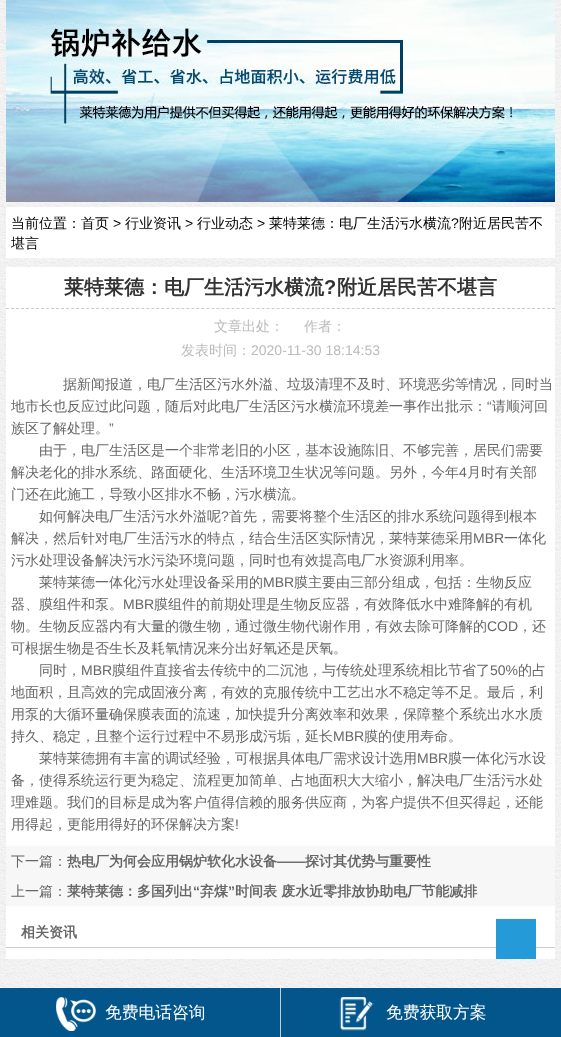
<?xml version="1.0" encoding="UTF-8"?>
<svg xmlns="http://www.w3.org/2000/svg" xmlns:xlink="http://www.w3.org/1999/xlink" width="561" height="1037">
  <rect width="100%" height="100%" fill="#ffffff" />
  <image x="0" y="0" width="561" height="988" xlink:href="image1.png" />
  <image x="6" y="0" width="549" height="202" xlink:href="image2.png" />
  <rect x="6" y="207" width="549" height="51" fill="#ffffff" />
  <rect x="6" y="267" width="549" height="692" fill="#ffffff" />
  <path d="M 6 308.5 h 549" fill="none" stroke="#cccccc" stroke-dasharray="3 2.01" />
  <rect x="6" y="846" width="549" height="60" fill="#f7f7f7" />
  <rect x="6" y="947" width="549" height="1" fill="#cccccc" />
  <rect x="496" y="919" width="40" height="40" fill="#259ad9" />
  <rect y="988" width="561" height="49" fill="#03568c" />
  <rect x="280" y="988" width="1" height="49" fill="#cccccc" />
  <image x="56" y="997" width="40" height="34" xlink:href="image3.png" />
  <image x="339" y="997" width="35" height="34" xlink:href="image4.png" />
  <text x="11" y="228" style="font-family: WenQuanYi Zen Hei; font-size: 14px; font-weight: 500; fill: #000000">当前位置：首页</text>
  <text x="113" y="228" style="font-family: Liberation Sans; font-size: 14px; fill: #000000">&gt;</text>
  <text x="125" y="228" style="font-family: WenQuanYi Zen Hei; font-size: 14px; font-weight: 500; fill: #000000">行业资讯</text>
  <text x="185" y="228" style="font-family: Liberation Sans; font-size: 14px; fill: #000000">&gt;</text>
  <text x="197" y="228" style="font-family: WenQuanYi Zen Hei; font-size: 14px; font-weight: 500; fill: #000000">行业动态</text>
  <text x="257" y="228" style="font-family: Liberation Sans; font-size: 14px; fill: #000000">&gt;</text>
  <text x="269" y="228" style="font-family: WenQuanYi Zen Hei; font-size: 14px; font-weight: 500; fill: #000000">莱特莱德：电厂生活污水横流</text>
  <text x="451" y="228" style="font-family: Liberation Sans; font-size: 14px; fill: #000000">?</text>
  <text x="459" y="228" style="font-family: WenQuanYi Zen Hei; font-size: 14px; font-weight: 500; fill: #000000">附近居民苦不</text>
  <text x="11" y="248" style="font-family: WenQuanYi Zen Hei; font-size: 14px; font-weight: 500; fill: #000000">堪言</text>
  <text x="64" y="294" style="font-family: WenQuanYi Zen Hei; font-size: 20px; font-weight: bold; fill: #333333">莱特莱德：电厂生活污水横流</text>
  <text x="324" y="294" style="font-family: Liberation Sans; font-size: 20px; font-weight: bold; fill: #333333">?</text>
  <text x="337" y="294" style="font-family: WenQuanYi Zen Hei; font-size: 20px; font-weight: bold; fill: #333333">附近居民苦不堪言</text>
  <text x="214" y="331" style="font-family: WenQuanYi Zen Hei; font-size: 14px; font-weight: 500; fill: #bcbbbb">文章出处：</text>
  <text x="304" y="331" style="font-family: WenQuanYi Zen Hei; font-size: 14px; font-weight: 500; fill: #bcbbbb">作者：</text>
  <text x="181" y="355" style="font-family: WenQuanYi Zen Hei; font-size: 14px; font-weight: 500; fill: #bcbbbb">发表时间：</text>
  <text x="251" y="355" style="font-family: Liberation Sans; font-size: 14px; fill: #bcbbbb">2020-11-30 18:14:53</text>
  <text x="63" y="389" style="font-family: WenQuanYi Zen Hei; font-size: 14px; font-weight: 500; fill: #666666">据新闻报道，电厂生活区污水外溢、垃圾清理不及时、环境恶劣等情况，同时当</text>
  <text x="11" y="411" style="font-family: WenQuanYi Zen Hei; font-size: 14px; font-weight: 500; fill: #666666">地市长也反应过此问题，随后对此电厂生活区污水横流环境差一事作出批示：</text>
  <text x="487" y="411" style="font-family: Liberation Sans; font-size: 14px; fill: #666666">“</text>
  <text x="492" y="411" style="font-family: WenQuanYi Zen Hei; font-size: 14px; font-weight: 500; fill: #666666">请顺河回</text>
  <text x="11" y="433" style="font-family: WenQuanYi Zen Hei; font-size: 14px; font-weight: 500; fill: #666666">族区了解处理。</text>
  <text x="109" y="433" style="font-family: Liberation Sans; font-size: 14px; fill: #666666">”</text>
  <text x="39" y="455" style="font-family: WenQuanYi Zen Hei; font-size: 14px; font-weight: 500; fill: #666666">由于，电厂生活区是一个非常老旧的小区，基本设施陈旧、不够完善，居民们需要</text>
  <text x="11" y="477" style="font-family: WenQuanYi Zen Hei; font-size: 14px; font-weight: 500; fill: #666666">解决老化的排水系统、路面硬化、生活环境卫生状况等问题。另外，今年</text>
  <text x="459" y="477" style="font-family: Liberation Sans; font-size: 14px; fill: #666666">4</text>
  <text x="467" y="477" style="font-family: WenQuanYi Zen Hei; font-size: 14px; font-weight: 500; fill: #666666">月时有关部</text>
  <text x="11" y="499" style="font-family: WenQuanYi Zen Hei; font-size: 14px; font-weight: 500; fill: #666666">门还在此施工，导致小区排水不畅，污水横流。</text>
  <text x="39" y="521" style="font-family: WenQuanYi Zen Hei; font-size: 14px; font-weight: 500; fill: #666666">如何解决电厂生活污水外溢呢</text>
  <text x="221" y="521" style="font-family: Liberation Sans; font-size: 14px; fill: #666666">?</text>
  <text x="229" y="521" style="font-family: WenQuanYi Zen Hei; font-size: 14px; font-weight: 500; fill: #666666">首先，需要将整个生活区的排水系统问题得到根本</text>
  <text x="11" y="543" style="font-family: WenQuanYi Zen Hei; font-size: 14px; font-weight: 500; fill: #666666">解决，然后针对电厂生活污水的特点，结合生活区实际情况，莱特莱德采用</text>
  <text x="473" y="543" style="font-family: Liberation Sans; font-size: 14px; fill: #666666">MBR</text>
  <text x="504" y="543" style="font-family: WenQuanYi Zen Hei; font-size: 14px; font-weight: 500; fill: #666666">一体化</text>
  <text x="11" y="565" style="font-family: WenQuanYi Zen Hei; font-size: 14px; font-weight: 500; fill: #666666">污水处理设备解决污水污染环境问题，同时也有效提高电厂水资源利用率。</text>
  <text x="39" y="587" style="font-family: WenQuanYi Zen Hei; font-size: 14px; font-weight: 500; fill: #666666">莱特莱德一体化污水处理设备采用的</text>
  <text x="263" y="587" style="font-family: Liberation Sans; font-size: 14px; fill: #666666">MBR</text>
  <text x="294" y="587" style="font-family: WenQuanYi Zen Hei; font-size: 14px; font-weight: 500; fill: #666666">膜主要由三部分组成，包括：生物反应</text>
  <text x="11" y="609" style="font-family: WenQuanYi Zen Hei; font-size: 14px; font-weight: 500; fill: #666666">器、膜组件和泵。</text>
  <text x="123" y="609" style="font-family: Liberation Sans; font-size: 14px; fill: #666666">MBR</text>
  <text x="154" y="609" style="font-family: WenQuanYi Zen Hei; font-size: 14px; font-weight: 500; fill: #666666">膜组件的前期处理是生物反应器，有效降低水中难降解的有机</text>
  <text x="11" y="631" style="font-family: WenQuanYi Zen Hei; font-size: 14px; font-weight: 500; fill: #666666">物。生物反应器内有大量的微生物，通过微生物代谢作用，有效去除可降解的</text>
  <text x="487" y="631" style="font-family: Liberation Sans; font-size: 14px; fill: #666666">COD</text>
  <text x="518" y="631" style="font-family: WenQuanYi Zen Hei; font-size: 14px; font-weight: 500; fill: #666666">，还</text>
  <text x="11" y="653" style="font-family: WenQuanYi Zen Hei; font-size: 14px; font-weight: 500; fill: #666666">可根据生物是否生长及耗氧情况来分出好氧还是厌氧。</text>
  <text x="39" y="675" style="font-family: WenQuanYi Zen Hei; font-size: 14px; font-weight: 500; fill: #666666">同时，</text>
  <text x="81" y="675" style="font-family: Liberation Sans; font-size: 14px; fill: #666666">MBR</text>
  <text x="112" y="675" style="font-family: WenQuanYi Zen Hei; font-size: 14px; font-weight: 500; fill: #666666">膜组件直接省去传统中的二沉池，与传统处理系统相比节省了</text>
  <text x="490" y="675" style="font-family: Liberation Sans; font-size: 14px; fill: #666666">50%</text>
  <text x="518" y="675" style="font-family: WenQuanYi Zen Hei; font-size: 14px; font-weight: 500; fill: #666666">的占</text>
  <text x="11" y="697" style="font-family: WenQuanYi Zen Hei; font-size: 14px; font-weight: 500; fill: #666666">地面积，且高效的完成固液分离，有效的克服传统中工艺出水不稳定等不足。最后，利</text>
  <text x="11" y="719" style="font-family: WenQuanYi Zen Hei; font-size: 14px; font-weight: 500; fill: #666666">用泵的大循环量确保膜表面的流速，加快提升分离效率和效果，保障整个系统出水水质</text>
  <text x="11" y="741" style="font-family: WenQuanYi Zen Hei; font-size: 14px; font-weight: 500; fill: #666666">持久、稳定，且整个运行过程中不易形成污垢，延长</text>
  <text x="333" y="741" style="font-family: Liberation Sans; font-size: 14px; fill: #666666">MBR</text>
  <text x="364" y="741" style="font-family: WenQuanYi Zen Hei; font-size: 14px; font-weight: 500; fill: #666666">膜的使用寿命。</text>
  <text x="39" y="763" style="font-family: WenQuanYi Zen Hei; font-size: 14px; font-weight: 500; fill: #666666">莱特莱德拥有丰富的调试经验，可根据具体电厂需求设计选用</text>
  <text x="417" y="763" style="font-family: Liberation Sans; font-size: 14px; fill: #666666">MBR</text>
  <text x="448" y="763" style="font-family: WenQuanYi Zen Hei; font-size: 14px; font-weight: 500; fill: #666666">膜一体化污水设</text>
  <text x="11" y="785" style="font-family: WenQuanYi Zen Hei; font-size: 14px; font-weight: 500; fill: #666666">备，使得系统运行更为稳定、流程更加简单、占地面积大大缩小，解决电厂生活污水处</text>
  <text x="11" y="807" style="font-family: WenQuanYi Zen Hei; font-size: 14px; font-weight: 500; fill: #666666">理难题。我们的目标是成为客户值得信赖的服务供应商，为客户提供不但买得起，还能</text>
  <text x="11" y="829" style="font-family: WenQuanYi Zen Hei; font-size: 14px; font-weight: 500; fill: #666666">用得起，更能用得好的环保解决方案</text>
  <text x="235" y="829" style="font-family: Liberation Sans; font-size: 14px; fill: #666666">!</text>
  <text x="11" y="866" style="font-family: WenQuanYi Zen Hei; font-size: 14px; font-weight: 500; fill: #666666">下一篇：</text>
  <text x="67" y="866" style="font-family: WenQuanYi Zen Hei; font-size: 14px; font-weight: bold; fill: #666666">热电厂为何会应用锅炉软化水设备</text>
  <text x="277" y="866" style="font-family: Liberation Sans; font-size: 14px; font-weight: bold; fill: #666666">——</text>
  <text x="305" y="866" style="font-family: WenQuanYi Zen Hei; font-size: 14px; font-weight: bold; fill: #666666">探讨其优势与重要性</text>
  <text x="11" y="896" style="font-family: WenQuanYi Zen Hei; font-size: 14px; font-weight: 500; fill: #666666">上一篇：</text>
  <text x="67" y="896" style="font-family: WenQuanYi Zen Hei; font-size: 14px; font-weight: bold; fill: #666666">莱特莱德：多国列出</text>
  <text x="193" y="896" style="font-family: Liberation Sans; font-size: 14px; font-weight: bold; fill: #666666">“</text>
  <text x="200" y="896" style="font-family: WenQuanYi Zen Hei; font-size: 14px; font-weight: bold; fill: #666666">弃煤</text>
  <text x="228" y="896" style="font-family: Liberation Sans; font-size: 14px; font-weight: bold; fill: #666666">”</text>
  <text x="235" y="896" style="font-family: WenQuanYi Zen Hei; font-size: 14px; font-weight: bold; fill: #666666">时间表 废水近零排放协助电厂节能减排</text>
  <text x="21" y="937" style="font-family: WenQuanYi Zen Hei; font-size: 14px; font-weight: bold; fill: #666666">相关资讯</text>
  <text x="105" y="1018" style="font-family: WenQuanYi Zen Hei; font-size: 16.75px; font-weight: 500; fill: #ffffff">免费电话咨询</text>
  <text x="386" y="1018" style="font-family: WenQuanYi Zen Hei; font-size: 16.75px; font-weight: 500; fill: #ffffff">免费获取方案</text>
</svg>
